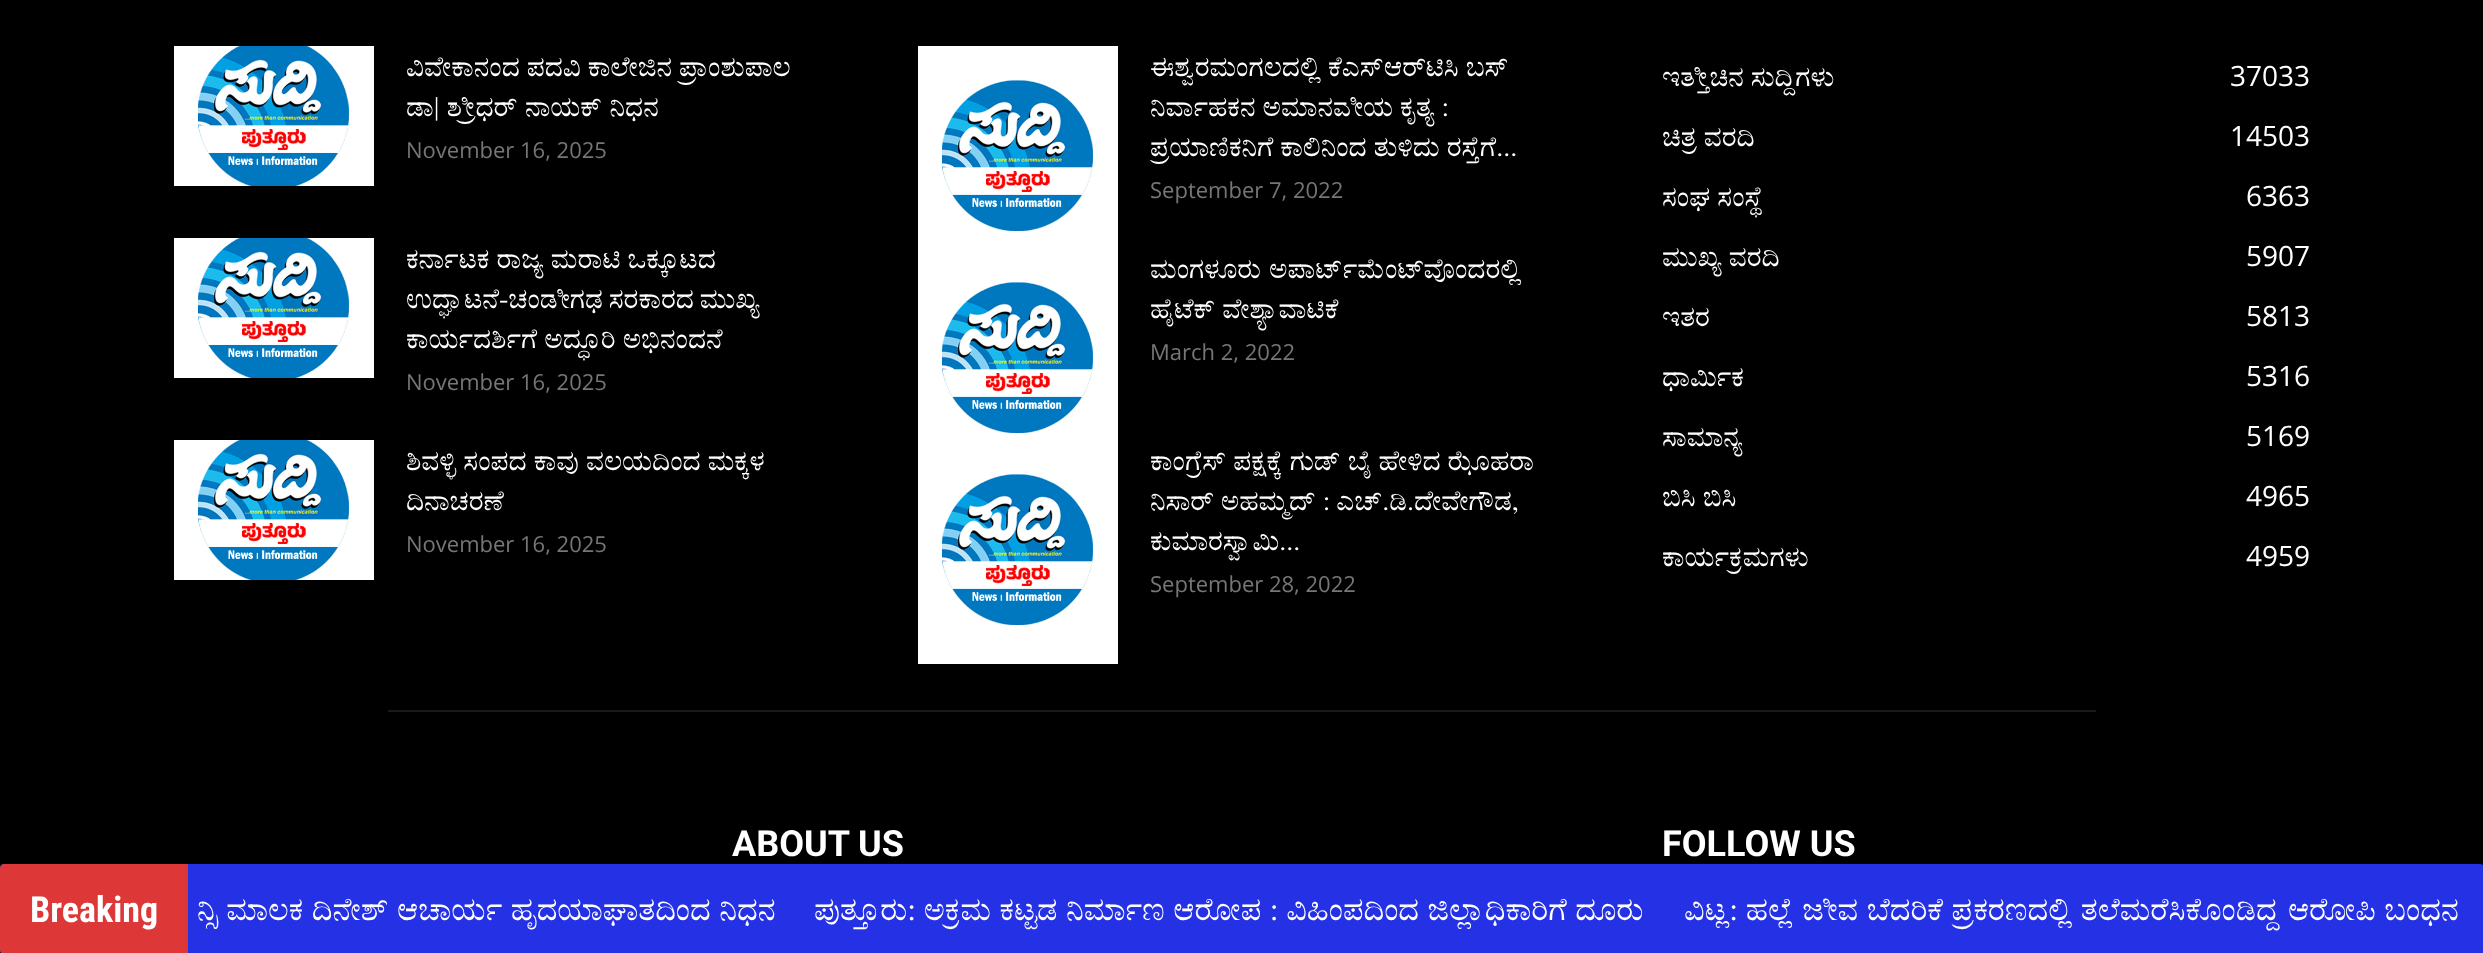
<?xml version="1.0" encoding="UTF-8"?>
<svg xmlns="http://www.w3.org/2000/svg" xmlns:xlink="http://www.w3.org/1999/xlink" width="2483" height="953">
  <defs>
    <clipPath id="clip1"><rect x="1662" width="648" height="586" /></clipPath>
    <clipPath id="clip2"><rect x="198" y="864" width="616" height="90" /></clipPath>
    <clipPath id="clip3"><rect x="814" y="864" width="870" height="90" /></clipPath>
  </defs>
  <rect width="100%" height="100%" fill="#000000" />
  <image x="174" y="46" width="200" height="140" xlink:href="image1.png" />
  <image x="174" y="238" width="200" height="140" xlink:href="image1.png" />
  <image x="174" y="440" width="200" height="140" xlink:href="image1.png" />
  <image x="918" y="46" width="200" height="224" xlink:href="image2.png" />
  <image x="918" y="270" width="200" height="202" xlink:href="image3.png" />
  <image x="918" y="472" width="200" height="192" xlink:href="image4.png" />
  <rect x="388" y="710" width="1708" height="2" fill="#1a1a1a" />
  <rect y="864" width="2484" height="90" rx="4" fill="#2431e5" />
  <path d="M 4 864 h 184 v 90 h -184 c -2 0 -4 -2 -4 -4 v -82 c 0 -2 2 -4 4 -4 z" fill="#dd3737" />
  <text x="406" y="76" style="font-family: FreeSerif; font-size: 28px; fill: #ffffff">ವಿವೇಕಾನಂದ ಪದವಿ ಕಾಲೇಜಿನ ಪ್ರಾಂಶುಪಾಲ</text>
  <text x="406" y="116" word-spacing="0.5" style="font-family: FreeSerif; font-size: 28px; fill: #ffffff">ಡಾ| ಶ್ರೀಧರ್ ನಾಯಕ್ ನಿಧನ</text>
  <text x="406" y="158" style="font-family: Open Sans; font-size: 22px; fill: #767676">November 16, 2025</text>
  <text x="406" y="268" style="font-family: FreeSerif; font-size: 28px; fill: #ffffff">ಕರ್ನಾಟಕ ರಾಜ್ಯ ಮರಾಟಿ ಒಕ್ಕೂಟದ</text>
  <text x="406" y="308" word-spacing="-1" style="font-family: FreeSerif; font-size: 28px; fill: #ffffff">ಉದ್ಘಾಟನೆ-ಚಂಡೀಗಢ ಸರಕಾರದ ಮುಖ್ಯ</text>
  <text x="406" y="348" style="font-family: FreeSerif; font-size: 28px; fill: #ffffff">ಕಾರ್ಯದರ್ಶಿಗೆ ಅದ್ಧೂರಿ ಅಭಿನಂದನೆ</text>
  <text x="406" y="390" style="font-family: Open Sans; font-size: 22px; fill: #767676">November 16, 2025</text>
  <text x="406" y="470" style="font-family: FreeSerif; font-size: 28px; fill: #ffffff">ಶಿವಳ್ಳಿ ಸಂಪದ ಕಾವು ವಲಯದಿಂದ ಮಕ್ಕಳ</text>
  <text x="406" y="510" style="font-family: FreeSerif; font-size: 28px; fill: #ffffff">ದಿನಾಚರಣೆ</text>
  <text x="406" y="552" style="font-family: Open Sans; font-size: 22px; fill: #767676">November 16, 2025</text>
  <text x="1150" y="76" style="font-family: FreeSerif; font-size: 28px; fill: #ffffff">ಈಶ್ವರಮಂಗಲದಲ್ಲಿ ಕೆಎಸ್‌ಆರ್‌ಟಿಸಿ ಬಸ್</text>
  <text x="1150" y="116" style="font-family: FreeSerif; font-size: 28px; fill: #ffffff">ನಿರ್ವಾಹಕನ ಅಮಾನವೀಯ ಕೃತ್ಯ :</text>
  <text x="1150" y="156" style="font-family: FreeSerif; font-size: 28px; fill: #ffffff">ಪ್ರಯಾಣಿಕನಿಗೆ ಕಾಲಿನಿಂದ ತುಳಿದು ರಸ್ತೆಗೆ...</text>
  <text x="1150" y="198" style="font-family: Open Sans; font-size: 22px; fill: #767676">September 7, 2022</text>
  <text x="1150" y="278" word-spacing="1" style="font-family: FreeSerif; font-size: 28px; fill: #ffffff">ಮಂಗಳೂರು ಅಪಾರ್ಟ್‌ಮೆಂಟ್‌ವೊಂದರಲ್ಲಿ</text>
  <text x="1150" y="318" style="font-family: FreeSerif; font-size: 28px; fill: #ffffff">ಹೈಟೆಕ್ ವೇಶ್ಯಾವಾಟಿಕೆ</text>
  <text x="1150" y="360" style="font-family: Open Sans; font-size: 22px; fill: #767676">March 2, 2022</text>
  <text x="1150" y="470" style="font-family: FreeSerif; font-size: 28px; fill: #ffffff">ಕಾಂಗ್ರೆಸ್ ಪಕ್ಷಕ್ಕೆ ಗುಡ್ ಬೈ ಹೇಳಿದ ಝೊಹರಾ</text>
  <text x="1150" y="510" word-spacing="-0.5" style="font-family: FreeSerif; font-size: 28px; fill: #ffffff">ನಿಸಾರ್ ಅಹಮ್ಮದ್ : ಎಚ್.ಡಿ.ದೇವೇಗೌಡ,</text>
  <text x="1150" y="550" style="font-family: FreeSerif; font-size: 28px; fill: #ffffff">ಕುಮಾರಸ್ವಾಮಿ...</text>
  <text x="1150" y="592" style="font-family: Open Sans; font-size: 22px; fill: #767676">September 28, 2022</text>
  <text x="1662" y="86" style="font-family: FreeSerif; font-size: 28px; fill: #ffffff">ಇತ್ತೀಚಿನ ಸುದ್ದಿಗಳು</text>
  <text x="2230" y="86" style="font-family: Open Sans; font-size: 28px; fill: #ffffff">37033</text>
  <text x="1662" y="146" style="font-family: FreeSerif; font-size: 28px; fill: #ffffff">ಚಿತ್ರ ವರದಿ</text>
  <text x="2230" y="146" style="font-family: Open Sans; font-size: 28px; fill: #ffffff">14503</text>
  <text x="1662" y="206" style="font-family: FreeSerif; font-size: 28px; fill: #ffffff">ಸಂಘ ಸಂಸ್ಥೆ</text>
  <text x="2246" y="206" style="font-family: Open Sans; font-size: 28px; fill: #ffffff">6363</text>
  <g clip-path="url(#clip1)">
    <text x="1662" y="266" style="font-family: FreeSerif; font-size: 28px; fill: #ffffff">ಮುಖ್ಯ ವರದಿ</text>
  </g>
  <text x="2246" y="266" style="font-family: Open Sans; font-size: 28px; fill: #ffffff">5907</text>
  <text x="1662" y="326" style="font-family: FreeSerif; font-size: 28px; fill: #ffffff">ಇತರ</text>
  <text x="2246" y="326" style="font-family: Open Sans; font-size: 28px; fill: #ffffff">5813</text>
  <g clip-path="url(#clip1)">
    <text x="1662" y="386" style="font-family: FreeSerif; font-size: 28px; fill: #ffffff">ಧಾರ್ಮಿಕ</text>
  </g>
  <text x="2246" y="386" style="font-family: Open Sans; font-size: 28px; fill: #ffffff">5316</text>
  <g clip-path="url(#clip1)">
    <text x="1662" y="446" style="font-family: FreeSerif; font-size: 28px; fill: #ffffff">ಸಾಮಾನ್ಯ</text>
  </g>
  <text x="2246" y="446" style="font-family: Open Sans; font-size: 28px; fill: #ffffff">5169</text>
  <text x="1662" y="506" style="font-family: FreeSerif; font-size: 28px; fill: #ffffff">ಬಿಸಿ ಬಿಸಿ</text>
  <text x="2246" y="506" style="font-family: Open Sans; font-size: 28px; fill: #ffffff">4965</text>
  <g clip-path="url(#clip1)">
    <text x="1662" y="566" style="font-family: FreeSerif; font-size: 28px; fill: #ffffff">ಕಾರ್ಯಕ್ರಮಗಳು</text>
  </g>
  <text x="2246" y="566" style="font-family: Open Sans; font-size: 28px; fill: #ffffff">4959</text>
  <text x="732" y="856" style="font-family: Roboto; font-size: 36px; font-weight: bold; fill: #ffffff">ABOUT US</text>
  <text x="1662" y="856" style="font-family: Roboto; font-size: 36px; font-weight: bold; fill: #ffffff">FOLLOW US</text>
  <text x="30" y="922" style="font-family: Roboto Condensed; font-size: 36px; font-weight: bold; fill: #ffffff">Breaking</text>
  <g clip-path="url(#clip2)">
    <text x="197" y="920" word-spacing="0.5" style="font-family: FreeSerif; font-size: 32px; fill: #ffffff">ನ್ಸಿ ಮಾಲಕ ದಿನೇಶ್ ಆಚಾರ್ಯ ಹೃದಯಾಘಾತದಿಂದ ನಿಧನ</text>
  </g>
  <g clip-path="url(#clip3)">
    <text x="814" y="920" word-spacing="0.5" style="font-family: FreeSerif; font-size: 32px; fill: #ffffff">ಪುತ್ತೂರು: ಅಕ್ರಮ ಕಟ್ಟಡ ನಿರ್ಮಾಣ ಆರೋಪ : ವಿಹಿಂಪದಿಂದ ಜಿಲ್ಲಾಧಿಕಾರಿಗೆ ದೂರು</text>
  </g>
  <text x="1684" y="920" word-spacing="0.5" style="font-family: FreeSerif; font-size: 32px; fill: #ffffff">ವಿಟ್ಲ: ಹಲ್ಲೆ ಜೀವ ಬೆದರಿಕೆ ಪ್ರಕರಣದಲ್ಲಿ ತಲೆಮರೆಸಿಕೊಂಡಿದ್ದ ಆರೋಪಿ ಬಂಧನ</text>
</svg>
